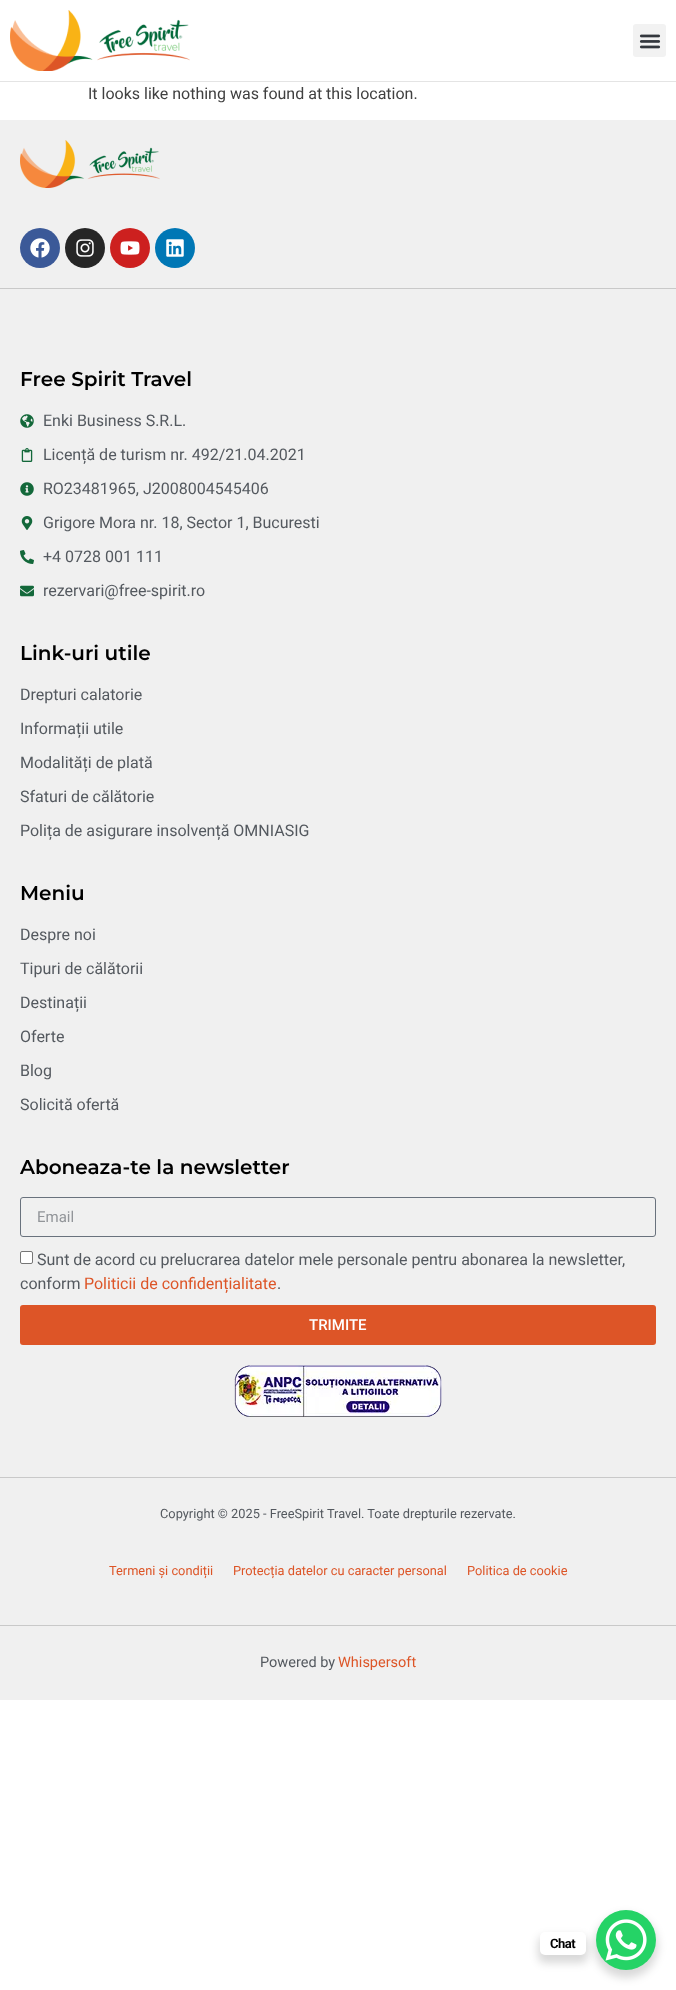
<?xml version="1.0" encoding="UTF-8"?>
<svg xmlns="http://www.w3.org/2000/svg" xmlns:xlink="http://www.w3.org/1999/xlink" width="676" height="1990">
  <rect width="100%" height="100%" fill="#ffffff" />
  <rect y="81" width="676" height="1" fill="#e4e4e4" />
  <image x="10" y="10" width="180" height="61" xlink:href="image1.png" />
  <rect x="633" y="24" width="33" height="33" rx="3" fill="#f2f2f2" />
  <image x="639" y="34" width="22" height="15" xlink:href="image2.png" />
  <rect y="120" width="676" height="1580" fill="#f0f0f0" />
  <rect y="288" width="676" height="1" fill="#c9c9c9" />
  <image x="20" y="140" width="140" height="48" xlink:href="image3.png" />
  <circle cx="40" cy="248" r="20" fill="#3b5998" />
  <image x="30" y="238" width="20" height="20" xlink:href="image4.png" />
  <circle cx="85" cy="248" r="20" fill="#262626" />
  <image x="76" y="239" width="18" height="18" xlink:href="image5.png" />
  <circle cx="130" cy="248" r="20" fill="#cd201f" />
  <image x="120" y="241" width="20" height="14" xlink:href="image6.png" />
  <circle cx="175" cy="248" r="20" fill="#0077b5" />
  <image x="166" y="239" width="18" height="18" xlink:href="image7.png" />
  <image x="20" y="414" width="14" height="14" xlink:href="image8.png" />
  <image x="21" y="448" width="12" height="14" xlink:href="image9.png" />
  <image x="20" y="482" width="14" height="14" xlink:href="image10.png" />
  <image x="21" y="516" width="12" height="14" xlink:href="image11.png" />
  <image x="20" y="550" width="14" height="14" xlink:href="image12.png" />
  <image x="20" y="585" width="14" height="12" xlink:href="image13.png" />
  <rect x="20.5" y="1197.5" width="635" height="39" rx="2.5" fill="none" stroke="#69727d" />
  <rect x="20.5" y="1251.5" width="12" height="12" rx="1.5" fill="#ffffff" stroke="#767676" />
  <rect x="20" y="1305" width="636" height="40" rx="3" fill="#dd5527" />
  <image x="234" y="1365" width="208" height="52" xlink:href="image14.png" />
  <rect y="1477" width="676" height="1" fill="#c9c9c9" />
  <rect y="1625" width="676" height="1" fill="#c9c9c9" />
  <rect x="594" y="1914" width="64" height="64" rx="32" fill="#000000" fill-opacity="0.15" filter="blur(4px)" />
  <circle cx="626" cy="1940" r="30" fill="#25d366" />
  <rect x="538" y="1936" width="50" height="27" rx="7" fill="#000000" fill-opacity="0.15" filter="blur(4px)" />
  <rect x="540" y="1932" width="46" height="23" rx="5" fill="#ffffff" />
  <image x="605" y="1919" width="42" height="42" xlink:href="image15.png" />
  <text x="88" y="99" style="font-family: Roboto; font-size: 16px; fill: #404040">It looks like nothing was found at this location.</text>
  <text x="20" y="386" style="font-family: Montserrat; font-size: 20px; font-weight: 600; fill: #000000">Free Spirit Travel</text>
  <text x="43" y="426" style="font-family: Roboto; font-size: 16px; fill: #54595f">Enki Business S.R.L.</text>
  <text x="43" y="460" style="font-family: Roboto; font-size: 16px; fill: #54595f">Licență de turism nr. 492/21.04.2021</text>
  <text x="43" y="494" style="font-family: Roboto; font-size: 16px; fill: #54595f">RO23481965, J2008004545406</text>
  <text x="43" y="528" style="font-family: Roboto; font-size: 16px; fill: #54595f">Grigore Mora nr. 18, Sector 1, Bucuresti</text>
  <text x="43" y="562" style="font-family: Roboto; font-size: 16px; fill: #54595f">+4 0728 001 111</text>
  <text x="43" y="596" style="font-family: Roboto; font-size: 16px; fill: #54595f">rezervari@free-spirit.ro</text>
  <text x="20" y="660" style="font-family: Montserrat; font-size: 20px; font-weight: 600; fill: #000000">Link-uri utile</text>
  <text x="20" y="700" style="font-family: Roboto; font-size: 16px; fill: #54595f">Drepturi calatorie</text>
  <text x="20" y="734" style="font-family: Roboto; font-size: 16px; fill: #54595f">Informații utile</text>
  <text x="20" y="768" style="font-family: Roboto; font-size: 16px; fill: #54595f">Modalități de plată</text>
  <text x="20" y="802" style="font-family: Roboto; font-size: 16px; fill: #54595f">Sfaturi de călătorie</text>
  <text x="20" y="836" style="font-family: Roboto; font-size: 16px; fill: #54595f">Polița de asigurare insolvență OMNIASIG</text>
  <text x="20" y="900" style="font-family: Montserrat; font-size: 20px; font-weight: 600; fill: #000000">Meniu</text>
  <text x="20" y="940" style="font-family: Roboto; font-size: 16px; fill: #54595f">Despre noi</text>
  <text x="20" y="974" style="font-family: Roboto; font-size: 16px; fill: #54595f">Tipuri de călătorii</text>
  <text x="20" y="1008" style="font-family: Roboto; font-size: 16px; fill: #54595f">Destinații</text>
  <text x="20" y="1042" style="font-family: Roboto; font-size: 16px; fill: #54595f">Oferte</text>
  <text x="20" y="1076" style="font-family: Roboto; font-size: 16px; fill: #54595f">Blog</text>
  <text x="20" y="1110" style="font-family: Roboto; font-size: 16px; fill: #54595f">Solicită ofertă</text>
  <text x="20" y="1174" style="font-family: Montserrat; font-size: 20px; font-weight: 600; fill: #000000">Aboneaza-te la newsletter</text>
  <text x="37" y="1222" style="font-family: Roboto; font-size: 15px; fill: #929599">Email</text>
  <text x="37" y="1265" style="font-family: Roboto; font-size: 16px; fill: #54595f">Sunt de acord cu prelucrarea datelor mele personale pentru abonarea la newsletter,</text>
  <text x="20" y="1289" style="font-family: Roboto; font-size: 16px; fill: #54595f">conform</text>
  <text x="84" y="1289" style="font-family: Roboto; font-size: 16px; fill: #dd5527">Politicii de confidențialitate</text>
  <text x="277" y="1289" style="font-family: Roboto; font-size: 16px; fill: #54595f">.</text>
  <text x="309" y="1330" style="font-family: Roboto; font-size: 15px; font-weight: 500; fill: #ffffff">TRIMITE</text>
  <text x="160" y="1518" style="font-family: Roboto; font-size: 12.8px; fill: #54595f">Copyright © 2025 - FreeSpirit Travel. Toate drepturile rezervate.</text>
  <text x="109" y="1575" style="font-family: Roboto; font-size: 12.8px; fill: #dd5527">Termeni și condiții</text>
  <text x="233" y="1575" style="font-family: Roboto; font-size: 12.8px; fill: #dd5527">Protecția datelor cu caracter personal</text>
  <text x="467" y="1575" style="font-family: Roboto; font-size: 12.8px; fill: #dd5527">Politica de cookie</text>
  <text x="260" y="1667" style="font-family: Roboto; font-size: 14.5px; fill: #54595f">Powered by</text>
  <text x="338" y="1667" style="font-family: Roboto; font-size: 14.5px; fill: #dd5527">Whispersoft</text>
  <text x="550" y="1948" style="font-family: Roboto; font-size: 13px; font-weight: bold; letter-spacing: -0.5px; fill: #000000">Chat</text>
</svg>
